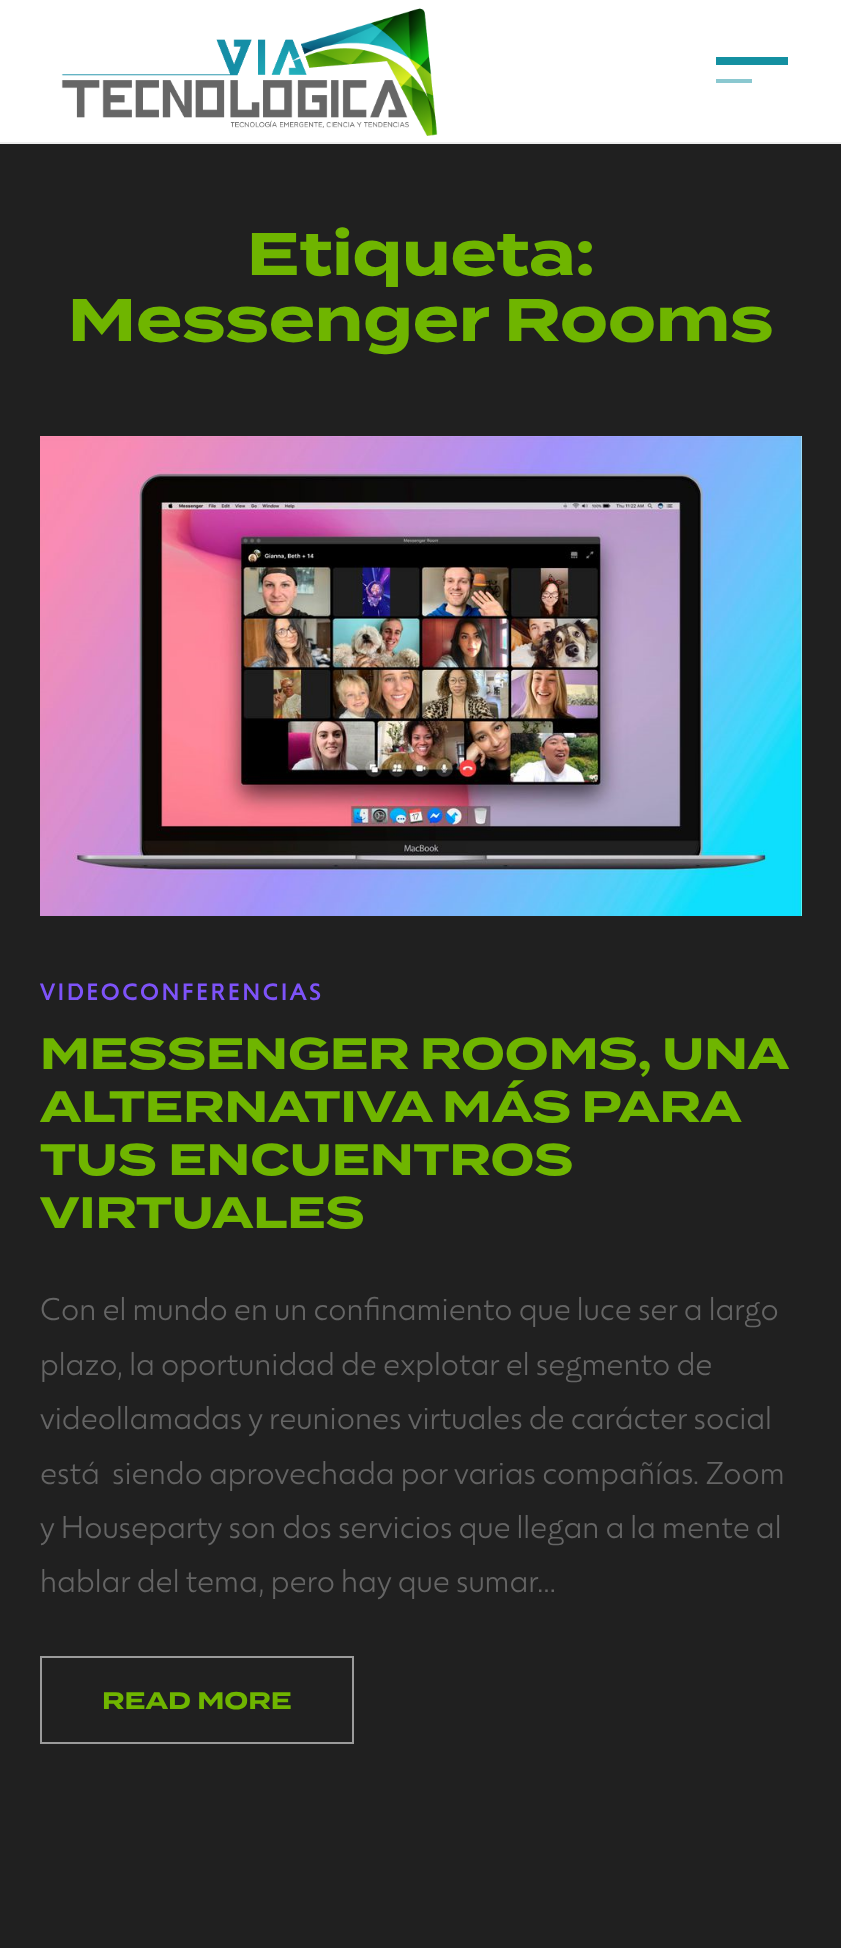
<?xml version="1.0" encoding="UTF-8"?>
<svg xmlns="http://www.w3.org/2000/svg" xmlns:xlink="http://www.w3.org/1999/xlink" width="841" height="1948">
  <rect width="100%" height="100%" fill="#202020" />
  <rect width="841" height="142" fill="#ffffff" />
  <image x="61" y="8" width="377" height="128" xlink:href="image1.png" />
  <rect x="716" y="57" width="72" height="8" fill="#1490a1" />
  <rect x="716" y="79" width="36" height="4" fill="#8ac8d0" />
  <rect y="142" width="841" height="2" fill="#eeeeee" />
  <image x="40" y="436" width="762" height="480" xlink:href="image2.png" />
  <rect x="41" y="1657" width="312" height="86" fill="none" stroke="#9b9b9b" stroke-width="2" />
  <text x="247" y="275" style="font-family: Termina; font-size: 60px; font-weight: bold; fill: #6fb500">Etiqueta:</text>
  <text x="68" y="341" style="font-family: Termina; font-size: 60px; font-weight: bold; fill: #6fb500">Messenger Rooms</text>
  <text x="40" y="1000" style="font-family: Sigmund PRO; font-size: 24px; letter-spacing: 2.4px; fill: #7e53f9">VIDEOCONFERENCIAS</text>
  <text x="40" y="1069" word-spacing="-1" style="font-family: Termina; font-size: 44px; font-weight: bold; fill: #6fb500">MESSENGER ROOMS, UNA</text>
  <text x="40" y="1122" word-spacing="-1" style="font-family: Termina; font-size: 44px; font-weight: bold; fill: #6fb500">ALTERNATIVA MÁS PARA</text>
  <text x="40" y="1175" style="font-family: Termina; font-size: 44px; font-weight: bold; fill: #6fb500">TUS ENCUENTROS</text>
  <text x="40" y="1228" style="font-family: Termina; font-size: 44px; font-weight: bold; fill: #6fb500">VIRTUALES</text>
  <text x="40" y="1320" style="font-family: Sigmund PRO; font-size: 32px; font-weight: 200; fill: #656565">Con el mundo en un confinamiento que luce ser a largo</text>
  <text x="40" y="1375" style="font-family: Sigmund PRO; font-size: 32px; font-weight: 200; fill: #656565">plazo, la oportunidad de explotar el segmento de</text>
  <text x="40" y="1429" style="font-family: Sigmund PRO; font-size: 32px; font-weight: 200; fill: #656565">videollamadas y reuniones virtuales de carácter social</text>
  <text x="40" y="1484" style="font-family: Sigmund PRO; font-size: 32px; font-weight: 200; fill: #656565" xml:space="preserve">está  siendo aprovechada por varias compañías. Zoom</text>
  <text x="40" y="1538" style="font-family: Sigmund PRO; font-size: 32px; font-weight: 200; fill: #656565">y Houseparty son dos servicios que llegan a la mente al</text>
  <text x="40" y="1592" style="font-family: Sigmund PRO; font-size: 32px; font-weight: 200; fill: #656565">hablar del tema, pero hay que sumar…</text>
  <text x="102" y="1709" style="font-family: Termina; font-size: 24px; font-weight: bold; fill: #6fb500">READ MORE</text>
</svg>
